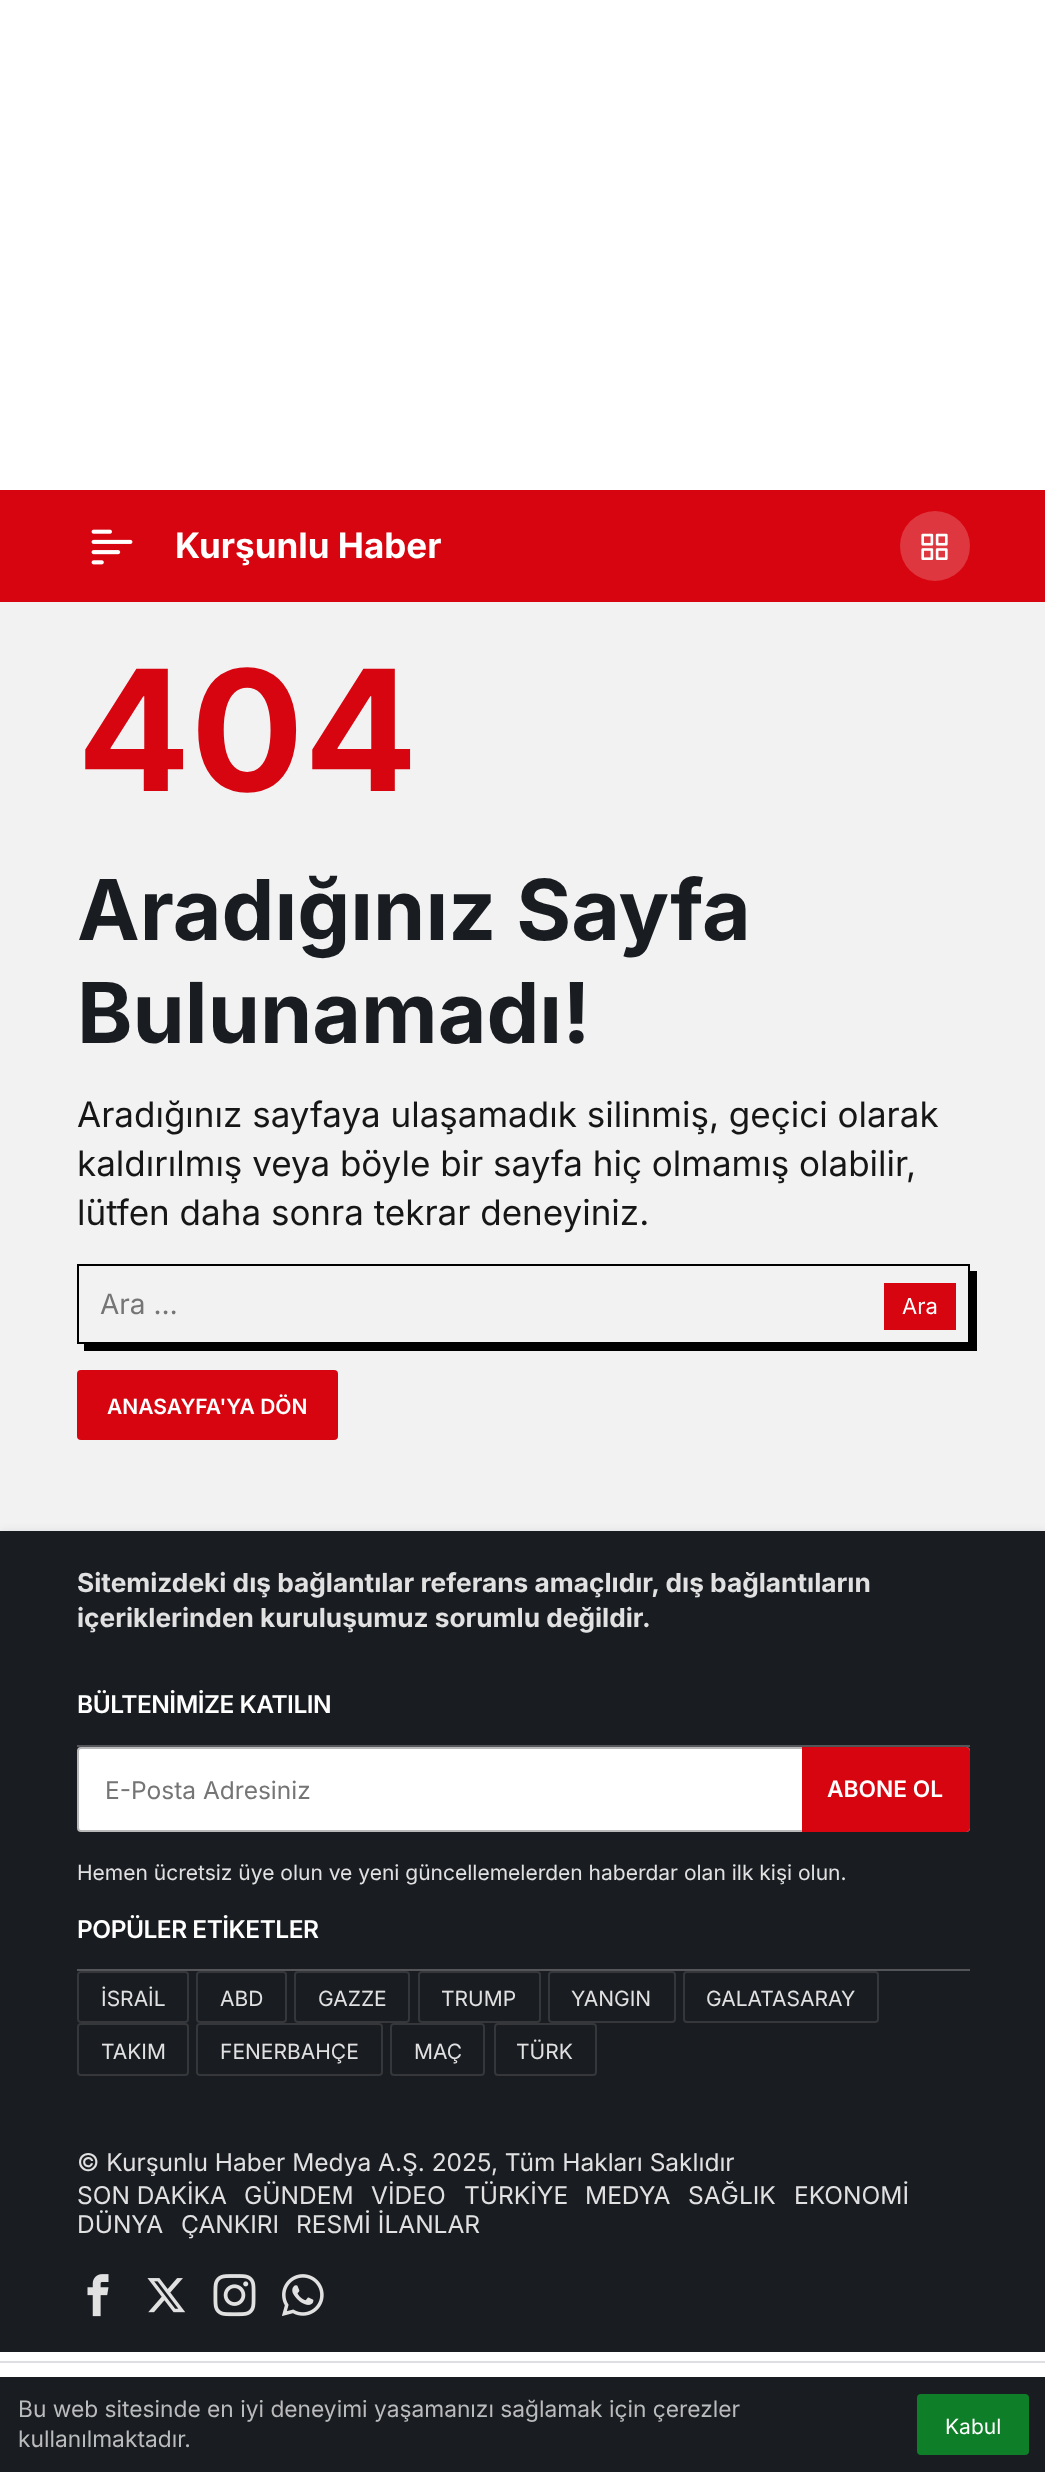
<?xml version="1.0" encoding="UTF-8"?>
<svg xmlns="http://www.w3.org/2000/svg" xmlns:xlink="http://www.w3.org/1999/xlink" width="1045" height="2472">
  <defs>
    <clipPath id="clip1"><rect x="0" y="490" width="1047" height="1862" /></clipPath>
  </defs>
  <rect width="100%" height="100%" fill="#ffffff" />
  <rect y="602" width="1045" height="929" fill="#f2f2f3" />
  <rect y="490" width="1045" height="112" fill="#d7050f" />
  <image x="91" y="529" width="42" height="36" xlink:href="image1.png" />
  <circle cx="935" cy="546" r="35" fill="#df373f" />
  <image x="921" y="533" width="27" height="27" xlink:href="image2.png" />
  <path d="M 84 1344 v 7 h 893 v -80 h -7 v 73 z" fill="#000000" />
  <rect x="78" y="1265" width="891" height="78" fill="none" stroke="#000000" stroke-width="2" />
  <rect x="884" y="1283" width="72" height="47" fill="#d7050f" />
  <rect x="77" y="1370" width="261" height="70" rx="4" fill="#d7050f" />
  <g clip-path="url(#clip1)">
    <rect y="1531" width="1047" height="821" fill="#32353d" fill-opacity="0.1" filter="blur(4.5px)" />
  </g>
  <rect y="1531" width="1045" height="821" fill="#191c20" />
  <rect x="77" y="1745" width="893" height="2" fill="#535558" />
  <rect x="78" y="1748" width="891" height="83" rx="3" fill="#ffffff" stroke="#b9b9b9" stroke-width="2" />
  <path d="M 802 1747 h 164 c 2 0 4 2 4 4 v 77 c 0 2 -2 4 -4 4 h -164 z" fill="#d7050f" />
  <rect x="77" y="1969" width="893" height="2" fill="#535558" />
  <rect x="78" y="1972" width="110" height="50" rx="3" fill="none" stroke="#35373b" stroke-width="2" />
  <rect x="197" y="1972" width="89" height="50" rx="3" fill="none" stroke="#35373b" stroke-width="2" />
  <rect x="295" y="1972" width="114" height="50" rx="3" fill="none" stroke="#35373b" stroke-width="2" />
  <rect x="419" y="1972" width="121" height="50" rx="3" fill="none" stroke="#35373b" stroke-width="2" />
  <rect x="549" y="1972" width="126" height="50" rx="3" fill="none" stroke="#35373b" stroke-width="2" />
  <rect x="684" y="1972" width="194" height="50" rx="3" fill="none" stroke="#35373b" stroke-width="2" />
  <rect x="78" y="2024" width="110" height="51" rx="3" fill="none" stroke="#35373b" stroke-width="2" />
  <rect x="197" y="2024" width="185" height="51" rx="3" fill="none" stroke="#35373b" stroke-width="2" />
  <rect x="391" y="2024" width="93" height="51" rx="3" fill="none" stroke="#35373b" stroke-width="2" />
  <rect x="495" y="2024" width="101" height="51" rx="3" fill="none" stroke="#35373b" stroke-width="2" />
  <image x="87" y="2274" width="22" height="43" xlink:href="image3.png" />
  <image x="147" y="2278" width="39" height="35" xlink:href="image4.png" />
  <image x="213" y="2274" width="43" height="43" xlink:href="image5.png" />
  <image x="282" y="2274" width="42" height="42" xlink:href="image6.png" />
  <rect y="2377" width="1045" height="95" fill="#191c20" />
  <rect x="917" y="2394" width="112" height="61" rx="4" fill="#0f7e29" />
  <rect y="2361" width="1045" height="2" fill="#dedfe2" />
  <text x="175" y="558" style="font-family: Inter; font-size: 35px; font-weight: bold; fill: #ffffff">Kurşunlu Haber</text>
  <text x="77" y="791" style="font-family: Inter; font-size: 168px; font-weight: bold; fill: #d7050f">404</text>
  <text x="77" y="940" style="font-family: Inter; font-size: 84px; font-weight: bold; fill: #191c20">Aradığınız Sayfa</text>
  <text x="77" y="1043" style="font-family: Inter; font-size: 84px; font-weight: bold; fill: #191c20">Bulunamadı!</text>
  <text x="77" y="1127" style="font-family: Inter; font-size: 35px; fill: #161616">Aradığınız sayfaya ulaşamadık silinmiş, geçici olarak</text>
  <text x="77" y="1176" style="font-family: Inter; font-size: 35px; fill: #161616">kaldırılmış veya böyle bir sayfa hiç olmamış olabilir,</text>
  <text x="77" y="1225" style="font-family: Inter; font-size: 35px; fill: #161616">lütfen daha sonra tekrar deneyiniz.</text>
  <text x="100" y="1314" style="font-family: Inter; font-size: 28px; fill: #757575">Ara …</text>
  <text x="902" y="1314" style="font-family: Inter; font-size: 22px; fill: #ffffff">Ara</text>
  <text x="107" y="1414" style="font-family: Inter; font-size: 21px; font-weight: 600; fill: #ffffff">ANASAYFA'YA DÖN</text>
  <text x="77" y="1592" style="font-family: Inter; font-size: 26.25px; font-weight: bold; fill: #e1e1e2">Sitemizdeki dış bağlantılar referans amaçlıdır, dış bağlantıların</text>
  <text x="77" y="1627" style="font-family: Inter; font-size: 26.25px; font-weight: bold; fill: #e1e1e2">içeriklerinden kuruluşumuz sorumlu değildir.</text>
  <text x="77" y="1713" style="font-family: Inter; font-size: 24.5px; font-weight: 600; letter-spacing: -0.5px; fill: #ffffff">BÜLTENİMİZE KATILIN</text>
  <text x="105" y="1799" style="font-family: Inter; font-size: 24.5px; fill: #757575">E-Posta Adresiniz</text>
  <text x="827" y="1797" style="font-family: Inter; font-size: 22.75px; font-weight: 600; fill: #ffffff">ABONE OL</text>
  <text x="77" y="1880" style="font-family: Inter; font-size: 21px; fill: #e1e1e2">Hemen ücretsiz üye olun ve yeni güncellemelerden haberdar olan ilk kişi olun.</text>
  <text x="77" y="1938" style="font-family: Inter; font-size: 24.5px; font-weight: 600; letter-spacing: -0.5px; fill: #ffffff">POPÜLER ETİKETLER</text>
  <text x="101" y="2006" style="font-family: Inter; font-size: 21px; fill: #e1e1e2">İSRAİL</text>
  <text x="220" y="2006" style="font-family: Inter; font-size: 21px; fill: #e1e1e2">ABD</text>
  <text x="318" y="2006" style="font-family: Inter; font-size: 21px; fill: #e1e1e2">GAZZE</text>
  <text x="441" y="2006" style="font-family: Inter; font-size: 21px; fill: #e1e1e2">TRUMP</text>
  <text x="571" y="2006" style="font-family: Inter; font-size: 21px; fill: #e1e1e2">YANGIN</text>
  <text x="706" y="2006" style="font-family: Inter; font-size: 21px; fill: #e1e1e2">GALATASARAY</text>
  <text x="101" y="2059" style="font-family: Inter; font-size: 21px; fill: #e1e1e2">TAKIM</text>
  <text x="220" y="2059" style="font-family: Inter; font-size: 21px; fill: #e1e1e2">FENERBAHÇE</text>
  <text x="414" y="2059" style="font-family: Inter; font-size: 21px; fill: #e1e1e2">MAÇ</text>
  <text x="516" y="2059" style="font-family: Inter; font-size: 21px; fill: #e1e1e2">TÜRK</text>
  <text x="77" y="2171" style="font-family: Inter; font-size: 24.5px; fill: #e1e1e2">© Kurşunlu Haber Medya A.Ş. 2025, Tüm Hakları Saklıdır</text>
  <text x="77" y="2204" style="font-family: Inter; font-size: 24.5px; fill: #e1e1e2">SON DAKİKA</text>
  <text x="244" y="2204" style="font-family: Inter; font-size: 24.5px; fill: #e1e1e2">GÜNDEM</text>
  <text x="371" y="2204" style="font-family: Inter; font-size: 24.5px; fill: #e1e1e2">VİDEO</text>
  <text x="464" y="2204" style="font-family: Inter; font-size: 24.5px; fill: #e1e1e2">TÜRKİYE</text>
  <text x="585" y="2204" style="font-family: Inter; font-size: 24.5px; fill: #e1e1e2">MEDYA</text>
  <text x="688" y="2204" style="font-family: Inter; font-size: 24.5px; fill: #e1e1e2">SAĞLIK</text>
  <text x="794" y="2204" style="font-family: Inter; font-size: 24.5px; fill: #e1e1e2">EKONOMİ</text>
  <text x="77" y="2233" style="font-family: Inter; font-size: 24.5px; fill: #e1e1e2">DÜNYA</text>
  <text x="181" y="2233" style="font-family: Inter; font-size: 24.5px; fill: #e1e1e2">ÇANKIRI</text>
  <text x="296" y="2233" style="font-family: Inter; font-size: 24.5px; fill: #e1e1e2">RESMİ İLANLAR</text>
  <text x="18" y="2417" style="font-family: Inter; font-size: 22.75px; fill: #babbbc">Bu web sitesinde en iyi deneyimi yaşamanızı sağlamak için çerezler</text>
  <text x="18" y="2447" style="font-family: Inter; font-size: 22.75px; fill: #babbbc">kullanılmaktadır.</text>
  <text x="945" y="2434" style="font-family: Inter; font-size: 21px; fill: #ffffff">Kabul</text>
</svg>
